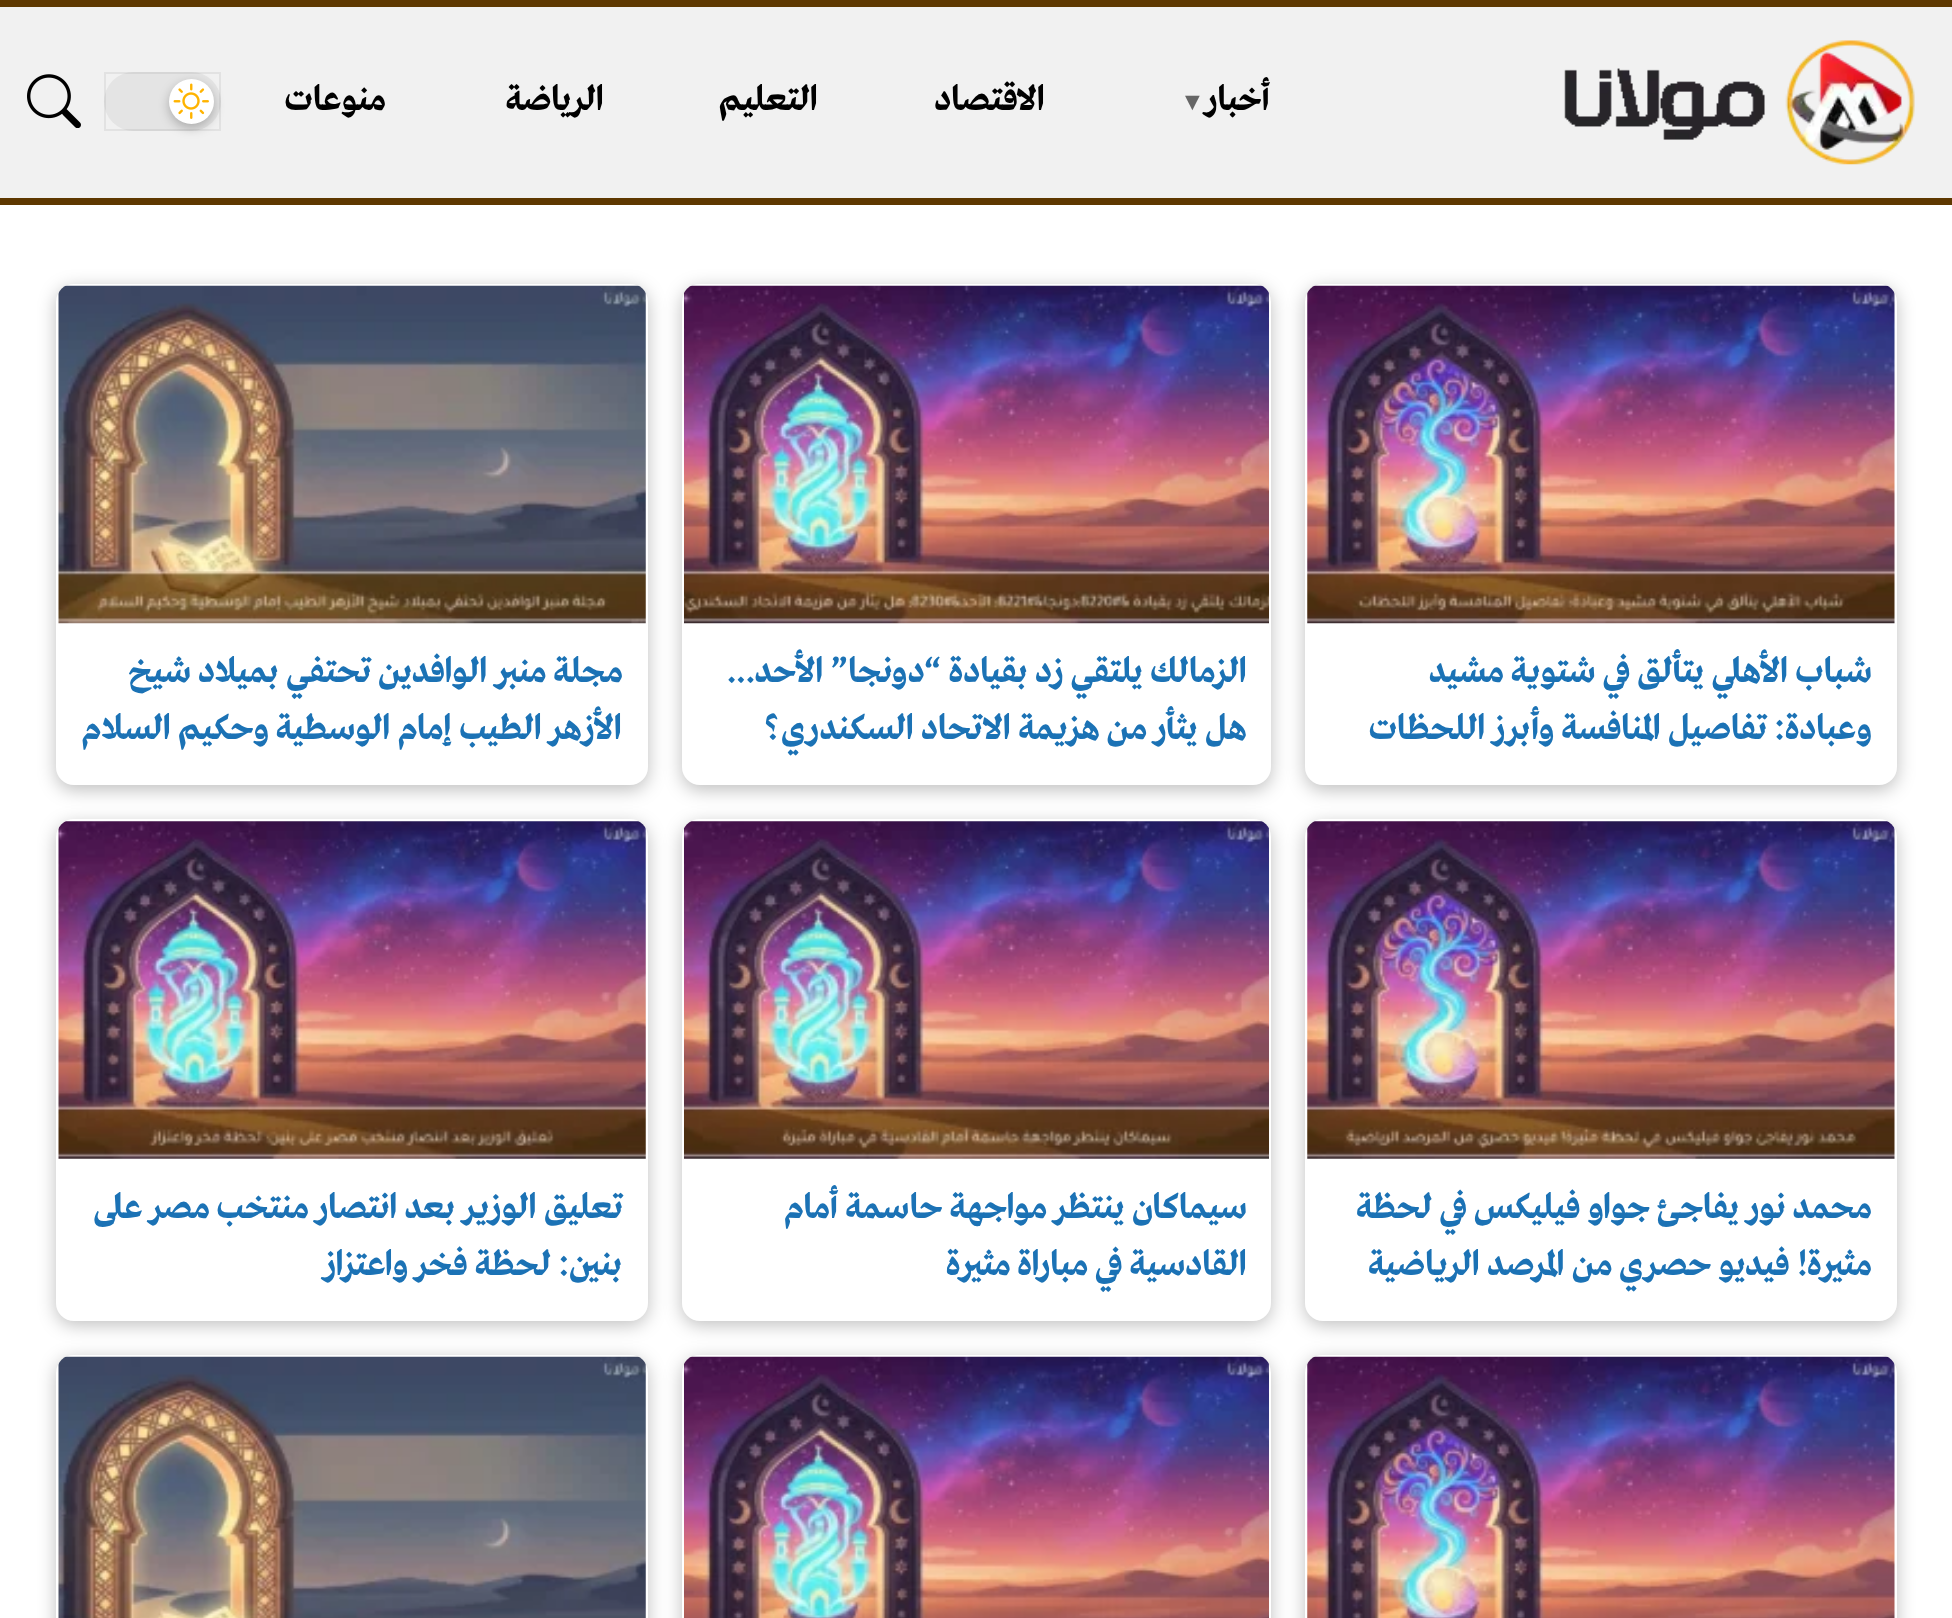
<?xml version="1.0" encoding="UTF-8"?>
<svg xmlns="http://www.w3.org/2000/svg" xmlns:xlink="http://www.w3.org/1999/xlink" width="1952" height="1618">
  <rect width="100%" height="100%" fill="#ffffff" />
  <rect y="7" width="1952" height="191" fill="#f1f1f1" />
  <rect width="1952" height="7" fill="#5e3800" />
  <rect y="198" width="1952" height="7" fill="#5e3800" />
  <image x="1564" y="40" width="351" height="125" xlink:href="image1.png" />
  <rect x="104" y="72" width="117" height="59" rx="29.5" fill="#e4e4e4" />
  <rect x="105" y="73" width="115" height="57" fill="none" stroke="#000000" stroke-opacity="0.06" stroke-width="2" />
  <rect x="169" y="83" width="45" height="45" rx="22.5" fill="#000000" fill-opacity="0.25" filter="blur(5.5px)" />
  <circle cx="191.5" cy="101.5" r="22.5" fill="#ffffff" />
  <image x="173" y="83" width="36" height="36" xlink:href="image2.png" />
  <image x="27" y="74" width="54" height="54" xlink:href="image3.png" />
  <rect x="1305" y="288" width="592" height="502" rx="18" fill="#000000" fill-opacity="0.25" filter="blur(9px)" />
  <rect x="1305" y="284" width="592" height="501" rx="18" fill="#ffffff" />
  <image x="1307" y="285" width="588" height="339" xlink:href="image4.png" />
  <rect x="682" y="288" width="589" height="502" rx="18" fill="#000000" fill-opacity="0.25" filter="blur(9px)" />
  <rect x="682" y="284" width="589" height="501" rx="18" fill="#ffffff" />
  <image x="684" y="285" width="585" height="339" xlink:href="image5.png" />
  <rect x="56" y="288" width="592" height="502" rx="18" fill="#000000" fill-opacity="0.25" filter="blur(9px)" />
  <rect x="56" y="284" width="592" height="501" rx="18" fill="#ffffff" />
  <image x="58" y="285" width="588" height="339" xlink:href="image6.png" />
  <rect x="1305" y="824" width="592" height="501" rx="18" fill="#000000" fill-opacity="0.25" filter="blur(9px)" />
  <rect x="1305" y="819" width="592" height="502" rx="18" fill="#ffffff" />
  <image x="1307" y="821" width="588" height="338" xlink:href="image7.png" />
  <rect x="682" y="824" width="589" height="501" rx="18" fill="#000000" fill-opacity="0.25" filter="blur(9px)" />
  <rect x="682" y="819" width="589" height="502" rx="18" fill="#ffffff" />
  <image x="684" y="821" width="585" height="338" xlink:href="image8.png" />
  <rect x="56" y="824" width="592" height="501" rx="18" fill="#000000" fill-opacity="0.25" filter="blur(9px)" />
  <rect x="56" y="819" width="592" height="502" rx="18" fill="#ffffff" />
  <image x="58" y="821" width="588" height="338" xlink:href="image9.png" />
  <rect x="1305" y="1359" width="592" height="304" rx="18" fill="#000000" fill-opacity="0.25" filter="blur(9px)" />
  <rect x="1305" y="1355" width="592" height="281" rx="18" fill="#ffffff" />
  <image x="1307" y="1356" width="588" height="262" xlink:href="image10.png" />
  <rect x="682" y="1359" width="589" height="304" rx="18" fill="#000000" fill-opacity="0.25" filter="blur(9px)" />
  <rect x="682" y="1355" width="589" height="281" rx="18" fill="#ffffff" />
  <image x="684" y="1356" width="585" height="262" xlink:href="image11.png" />
  <rect x="56" y="1359" width="592" height="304" rx="18" fill="#000000" fill-opacity="0.25" filter="blur(9px)" />
  <rect x="56" y="1355" width="592" height="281" rx="18" fill="#ffffff" />
  <image x="58" y="1356" width="588" height="262" xlink:href="image12.png" />
  <text x="1270" y="110" style="font-family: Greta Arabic; font-size: 36px; font-weight: bold; letter-spacing: 0.25px; direction: rtl; fill: #000000">أخبار</text>
  <text x="1180" y="110" style="font-family: Liberation Serif; font-size: 25px; font-weight: bold; letter-spacing: 0.25px; fill: #666666">▼</text>
  <text x="1045" y="110" style="font-family: Greta Arabic; font-size: 36px; font-weight: bold; letter-spacing: 0.25px; direction: rtl; fill: #000000">الاقتصاد</text>
  <text x="818" y="110" style="font-family: Greta Arabic; font-size: 36px; font-weight: bold; letter-spacing: 0.25px; direction: rtl; fill: #000000">التعليم</text>
  <text x="604" y="110" style="font-family: Greta Arabic; font-size: 36px; font-weight: bold; letter-spacing: 0.25px; direction: rtl; fill: #000000">الرياضة</text>
  <text x="386" y="110" style="font-family: Greta Arabic; font-size: 36px; font-weight: bold; letter-spacing: 0.25px; direction: rtl; fill: #000000">منوعات</text>
  <text x="1872" y="682" style="font-family: Greta Arabic; font-size: 36px; font-weight: bold; direction: rtl; fill: #1b72b5">شباب الأهلي يتألق في شتوية مشيد</text>
  <text x="1872" y="739" style="font-family: Greta Arabic; font-size: 36px; font-weight: bold; direction: rtl; fill: #1b72b5">وعبادة: تفاصيل المنافسة وأبرز اللحظات</text>
  <text x="1247" y="682" style="font-family: Greta Arabic; font-size: 36px; font-weight: bold; direction: rtl; fill: #1b72b5">الزمالك يلتقي زد بقيادة “دونجا” الأحد…</text>
  <text x="1247" y="739" style="font-family: Greta Arabic; font-size: 36px; font-weight: bold; direction: rtl; fill: #1b72b5">هل يثأر من هزيمة الاتحاد السكندري؟</text>
  <text x="623" y="682" style="font-family: Greta Arabic; font-size: 36px; font-weight: bold; direction: rtl; fill: #1b72b5">مجلة منبر الوافدين تحتفي بميلاد شيخ</text>
  <text x="622" y="739" style="font-family: Greta Arabic; font-size: 36px; font-weight: bold; direction: rtl; fill: #1b72b5">الأزهر الطيب إمام الوسطية وحكيم السلام</text>
  <text x="1872" y="1218" style="font-family: Greta Arabic; font-size: 36px; font-weight: bold; direction: rtl; fill: #1b72b5">محمد نور يفاجئ جواو فيليكس في لحظة</text>
  <text x="1872" y="1275" style="font-family: Greta Arabic; font-size: 36px; font-weight: bold; direction: rtl; fill: #1b72b5">مثيرة! فيديو حصري من المرصد الرياضية</text>
  <text x="1247" y="1218" style="font-family: Greta Arabic; font-size: 36px; font-weight: bold; direction: rtl; fill: #1b72b5">سيماكان ينتظر مواجهة حاسمة أمام</text>
  <text x="1247" y="1275" style="font-family: Greta Arabic; font-size: 36px; font-weight: bold; direction: rtl; fill: #1b72b5">القادسية في مباراة مثيرة</text>
  <text x="623" y="1218" style="font-family: Greta Arabic; font-size: 36px; font-weight: bold; direction: rtl; fill: #1b72b5">تعليق الوزير بعد انتصار منتخب مصر على</text>
  <text x="622" y="1275" style="font-family: Greta Arabic; font-size: 36px; font-weight: bold; direction: rtl; fill: #1b72b5">بنين: لحظة فخر واعتزاز</text>
</svg>
